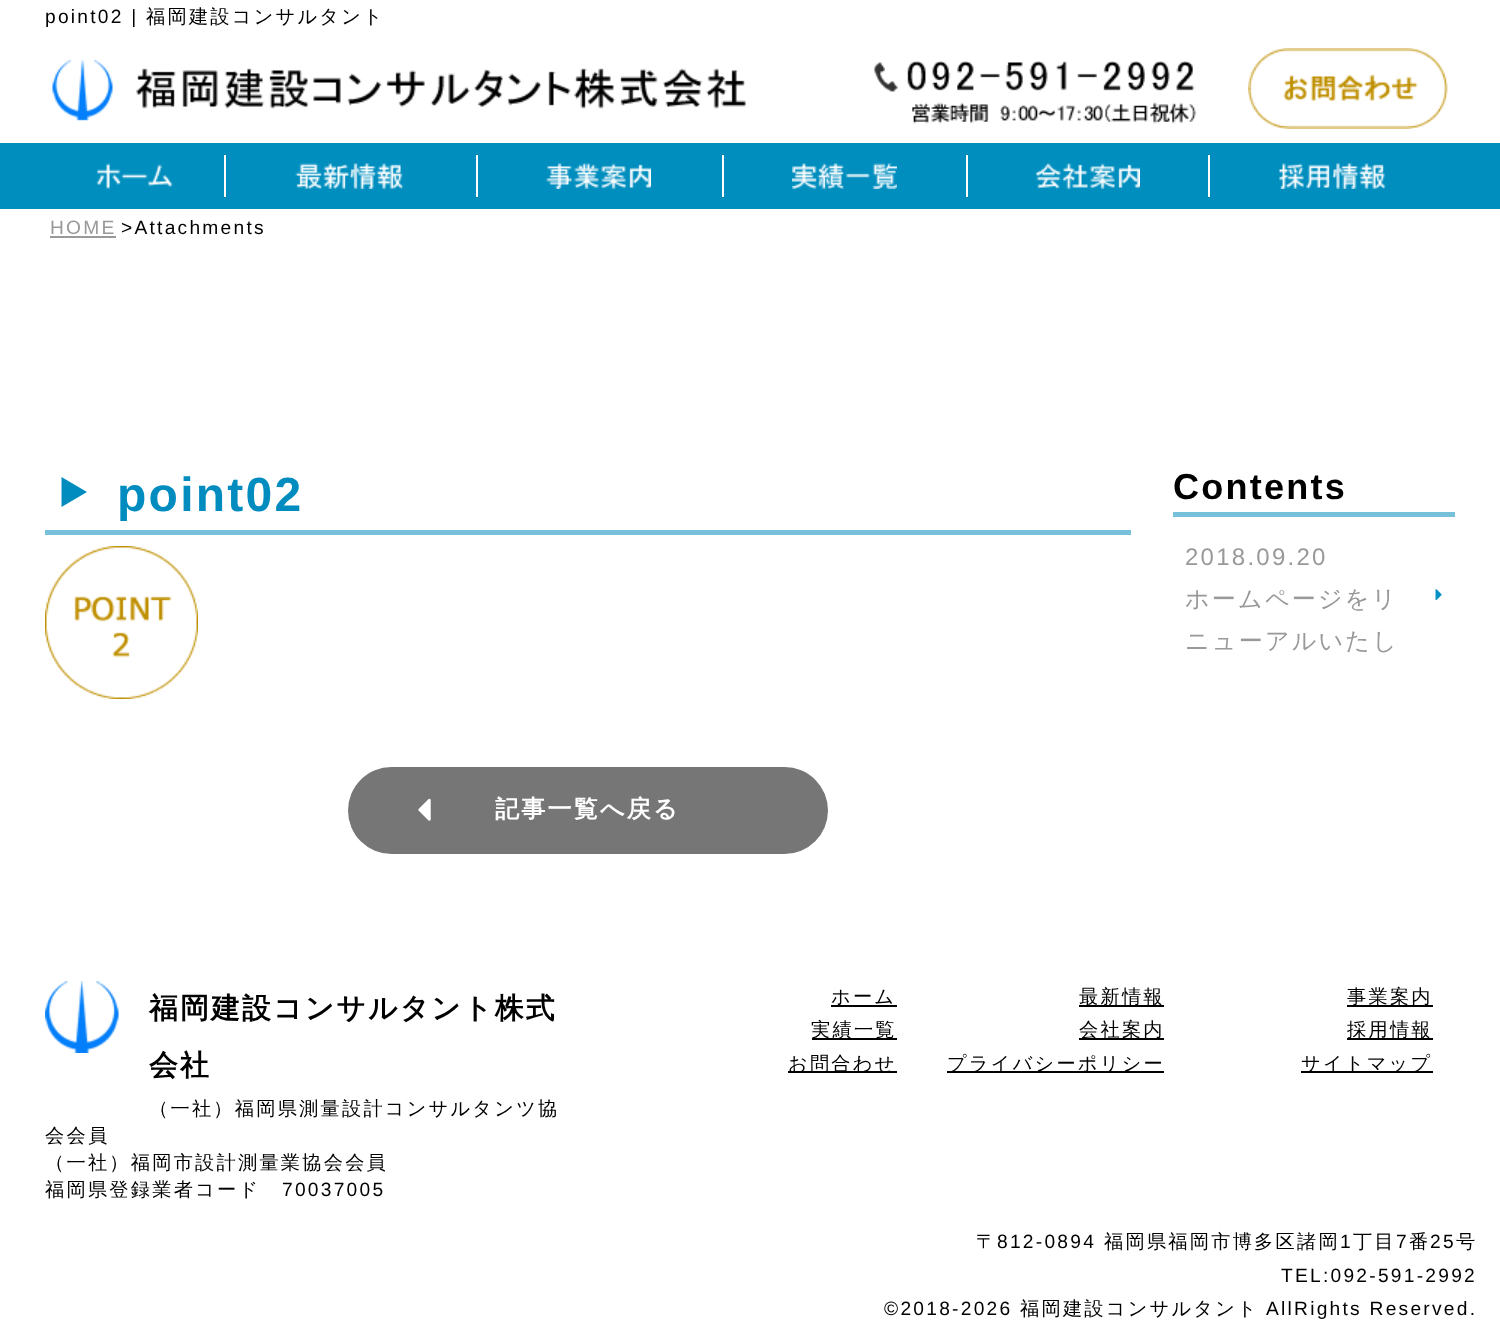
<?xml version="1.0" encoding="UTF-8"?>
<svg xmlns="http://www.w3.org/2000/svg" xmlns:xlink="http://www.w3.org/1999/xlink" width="1500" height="1329">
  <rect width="100%" height="100%" fill="#ffffff" />
  <image x="52" y="59" width="694" height="62" xlink:href="image1.png" />
  <image x="874" y="61" width="322" height="63" xlink:href="image2.png" />
  <image x="1248" y="48" width="200" height="81" xlink:href="image3.png" />
  <rect y="143" width="1500" height="66" fill="#008ebf" />
  <rect x="224" y="155" width="2" height="42" fill="#ffffff" />
  <image x="96" y="163" width="77" height="26" xlink:href="image4.png" />
  <rect x="476" y="155" width="2" height="42" fill="#ffffff" />
  <image x="295" y="163" width="109" height="26" xlink:href="image5.png" />
  <rect x="722" y="155" width="2" height="42" fill="#ffffff" />
  <image x="546" y="163" width="105" height="26" xlink:href="image6.png" />
  <rect x="966" y="155" width="2" height="42" fill="#ffffff" />
  <image x="792" y="163" width="105" height="26" xlink:href="image7.png" />
  <rect x="1208" y="155" width="2" height="42" fill="#ffffff" />
  <image x="1036" y="163" width="104" height="26" xlink:href="image8.png" />
  <image x="1279" y="163" width="107" height="26" xlink:href="image9.png" />
  <rect x="50" y="236" width="66" height="2" fill="#999999" />
  <rect x="45" y="530" width="1086" height="5" fill="#76c0da" />
  <path d="M 61.5 507 v -30 l 25.5 15 z" fill="#008cbf" />
  <image x="45" y="546" width="153" height="153" xlink:href="image10.png" />
  <rect x="348" y="767" width="480" height="87" rx="43.5" fill="#767676" />
  <image x="418" y="798" width="13" height="23" xlink:href="image11.png" />
  <rect x="1173" y="512" width="282" height="5" fill="#76c0da" />
  <image x="1435" y="589" width="7" height="12" xlink:href="image12.png" />
  <image x="45" y="981" width="74" height="72" xlink:href="image13.png" />
  <rect x="831" y="1005" width="66" height="2" fill="#000000" />
  <rect x="1079" y="1005" width="85" height="2" fill="#000000" />
  <rect x="1347" y="1005" width="86" height="2" fill="#000000" />
  <rect x="812" y="1038" width="85" height="2" fill="#000000" />
  <rect x="1079" y="1038" width="85" height="2" fill="#000000" />
  <rect x="1347" y="1038" width="86" height="2" fill="#000000" />
  <rect x="788" y="1071" width="109" height="2" fill="#000000" />
  <rect x="947" y="1071" width="217" height="2" fill="#000000" />
  <rect x="1301" y="1071" width="132" height="2" fill="#000000" />
  <text x="45" y="23" style="font-family: Liberation Sans; font-size: 19.2px; letter-spacing: 2.25px; fill: #000000">point02 |</text>
  <text x="146" y="23" style="font-family: WenQuanYi Zen Hei; font-size: 19.2px; font-weight: 500; letter-spacing: 2.25px; fill: #000000">福岡建設コンサルタント</text>
  <text x="50" y="234" style="font-family: Liberation Sans; font-size: 19.2px; letter-spacing: 2.25px; fill: #999999">HOME</text>
  <text x="121" y="234" style="font-family: Liberation Sans; font-size: 19.2px; letter-spacing: 2.25px; fill: #000000">&gt;Attachments</text>
  <text x="117" y="511" style="font-family: Liberation Sans; font-size: 48px; font-weight: bold; letter-spacing: 2.25px; fill: #008cbf">point02</text>
  <text x="495" y="817" style="font-family: WenQuanYi Zen Hei; font-size: 24px; font-weight: bold; letter-spacing: 2.25px; fill: #ffffff">記事一覧へ戻る</text>
  <text x="1173" y="499" style="font-family: Liberation Sans; font-size: 36px; font-weight: bold; letter-spacing: 2.25px; fill: #000000">Contents</text>
  <text x="1185" y="565" style="font-family: Liberation Sans; font-size: 24px; letter-spacing: 2.25px; fill: #999999">2018.09.20</text>
  <text x="1185" y="607" style="font-family: WenQuanYi Zen Hei; font-size: 24px; font-weight: 500; letter-spacing: 2.25px; fill: #999999">ホームページをリ</text>
  <text x="1185" y="649" style="font-family: WenQuanYi Zen Hei; font-size: 24px; font-weight: 500; letter-spacing: 2.25px; fill: #999999">ニューアルいたし</text>
  <text x="149" y="1018" style="font-family: WenQuanYi Zen Hei; font-size: 28.75px; font-weight: bold; letter-spacing: 2.25px; fill: #000000">福岡建設コンサルタント株式</text>
  <text x="149" y="1075" style="font-family: WenQuanYi Zen Hei; font-size: 28.75px; font-weight: bold; letter-spacing: 2.25px; fill: #000000">会社</text>
  <text x="149" y="1115" style="font-family: WenQuanYi Zen Hei; font-size: 19.2px; font-weight: 500; letter-spacing: 2.25px; fill: #000000">（一社）福岡県測量設計コンサルタンツ協</text>
  <text x="45" y="1142" style="font-family: WenQuanYi Zen Hei; font-size: 19.2px; font-weight: 500; letter-spacing: 2.25px; fill: #000000">会会員</text>
  <text x="45" y="1169" style="font-family: WenQuanYi Zen Hei; font-size: 19.2px; font-weight: 500; letter-spacing: 2.25px; fill: #000000">（一社）福岡市設計測量業協会会員</text>
  <text x="45" y="1196" style="font-family: WenQuanYi Zen Hei; font-size: 19.2px; font-weight: 500; letter-spacing: 2.25px; fill: #000000">福岡県登録業者コード</text>
  <text x="282" y="1196" style="font-family: Liberation Sans; font-size: 19.2px; letter-spacing: 2.25px; fill: #000000">70037005</text>
  <text x="831" y="1003" style="font-family: WenQuanYi Zen Hei; font-size: 19.2px; font-weight: 500; letter-spacing: 2.25px; fill: #000000">ホーム</text>
  <text x="1079" y="1003" style="font-family: WenQuanYi Zen Hei; font-size: 19.2px; font-weight: 500; letter-spacing: 2.25px; fill: #000000">最新情報</text>
  <text x="1347" y="1003" style="font-family: WenQuanYi Zen Hei; font-size: 19.2px; font-weight: 500; letter-spacing: 2.25px; fill: #000000">事業案内</text>
  <text x="811" y="1036" style="font-family: WenQuanYi Zen Hei; font-size: 19.2px; font-weight: 500; letter-spacing: 2.25px; fill: #000000">実績一覧</text>
  <text x="1079" y="1036" style="font-family: WenQuanYi Zen Hei; font-size: 19.2px; font-weight: 500; letter-spacing: 2.25px; fill: #000000">会社案内</text>
  <text x="1347" y="1036" style="font-family: WenQuanYi Zen Hei; font-size: 19.2px; font-weight: 500; letter-spacing: 2.25px; fill: #000000">採用情報</text>
  <text x="788" y="1070" style="font-family: WenQuanYi Zen Hei; font-size: 19.2px; font-weight: 500; letter-spacing: 2.25px; fill: #000000">お問合わせ</text>
  <text x="947" y="1070" style="font-family: WenQuanYi Zen Hei; font-size: 19.2px; font-weight: 500; letter-spacing: 2.25px; fill: #000000">プライバシーポリシー</text>
  <text x="1301" y="1070" style="font-family: WenQuanYi Zen Hei; font-size: 19.2px; font-weight: 500; letter-spacing: 2.25px; fill: #000000">サイトマップ</text>
  <text x="976" y="1248" style="font-family: WenQuanYi Zen Hei; font-size: 19.2px; font-weight: 500; letter-spacing: 2.25px; fill: #000000">〒</text>
  <text x="997" y="1248" style="font-family: Liberation Sans; font-size: 19.2px; letter-spacing: 2.25px; fill: #000000">812-0894</text>
  <text x="1104" y="1248" style="font-family: WenQuanYi Zen Hei; font-size: 19.2px; font-weight: 500; letter-spacing: 2.25px; fill: #000000">福岡県福岡市博多区諸岡</text>
  <text x="1340" y="1248" style="font-family: Liberation Sans; font-size: 19.2px; letter-spacing: 2.25px; fill: #000000">1</text>
  <text x="1353" y="1248" style="font-family: WenQuanYi Zen Hei; font-size: 19.2px; font-weight: 500; letter-spacing: 2.25px; fill: #000000">丁目</text>
  <text x="1396" y="1248" style="font-family: Liberation Sans; font-size: 19.2px; letter-spacing: 2.25px; fill: #000000">7</text>
  <text x="1409" y="1248" style="font-family: WenQuanYi Zen Hei; font-size: 19.2px; font-weight: 500; letter-spacing: 2.25px; fill: #000000">番</text>
  <text x="1430" y="1248" style="font-family: Liberation Sans; font-size: 19.2px; letter-spacing: 2.25px; fill: #000000">25</text>
  <text x="1456" y="1248" style="font-family: WenQuanYi Zen Hei; font-size: 19.2px; font-weight: 500; letter-spacing: 2.25px; fill: #000000">号</text>
  <text x="1281" y="1282" style="font-family: Liberation Sans; font-size: 19.2px; letter-spacing: 2.25px; fill: #000000">TEL:092-591-2992</text>
  <text x="884" y="1315" style="font-family: Liberation Sans; font-size: 19.2px; letter-spacing: 2.25px; fill: #000000">©2018-2026</text>
  <text x="1020" y="1315" style="font-family: WenQuanYi Zen Hei; font-size: 19.2px; font-weight: 500; letter-spacing: 2.25px; fill: #000000">福岡建設コンサルタント</text>
  <text x="1266" y="1315" style="font-family: Liberation Sans; font-size: 19.2px; letter-spacing: 2.25px; fill: #000000">AllRights Reserved.</text>
</svg>
